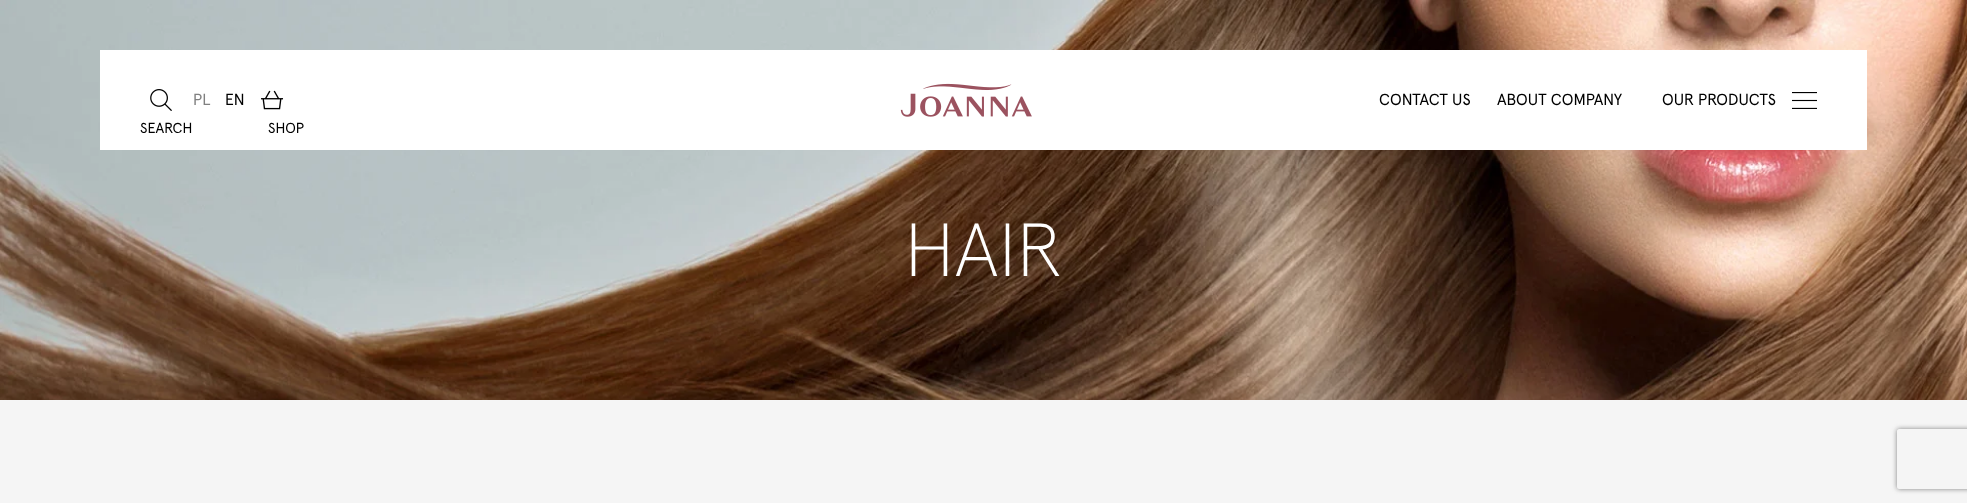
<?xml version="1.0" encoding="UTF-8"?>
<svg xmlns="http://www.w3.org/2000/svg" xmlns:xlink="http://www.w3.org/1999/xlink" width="1967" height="503">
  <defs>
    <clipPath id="clip1"><path d="M 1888 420 h 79 v 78 h -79 z m 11 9 h 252 c 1 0 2 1 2 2 v 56 c 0 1 -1 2 -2 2 h -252 c -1 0 -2 -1 -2 -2 v -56 c 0 -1 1 -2 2 -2 z" clip-rule="evenodd" /></clipPath>
  </defs>
  <rect width="100%" height="100%" fill="#f5f5f5" />
  <image x="0" y="0" width="1967" height="400" xlink:href="image5.png" />
  <rect x="100" y="50" width="1767" height="100" fill="#ffffff" />
  <image x="150" y="89" width="22" height="22" xlink:href="image1.png" />
  <image x="261" y="90" width="23" height="20" xlink:href="image2.png" />
  <image x="900" y="83" width="132" height="34" xlink:href="image3.png" />
  <image x="1792" y="92" width="25" height="17" xlink:href="image4.png" />
  <g clip-path="url(#clip1)">
    <rect x="1897" y="429" width="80" height="60" rx="2" fill="#808080" filter="blur(2.5px)" />
  </g>
  <text x="193" y="105" style="font-family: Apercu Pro; font-size: 16px; fill: #808080">PL</text>
  <text x="225" y="105" style="font-family: Apercu Pro; font-size: 16px; fill: #000000">EN</text>
  <text x="1379" y="105" style="font-family: Apercu Pro; font-size: 16px; fill: #000000">CONTACT US</text>
  <text x="1497" y="105" style="font-family: Apercu Pro; font-size: 16px; fill: #000000">ABOUT COMPANY</text>
  <text x="1662" y="105" style="font-family: Apercu Pro; font-size: 16px; fill: #000000">OUR PRODUCTS</text>
  <text x="140" y="133" style="font-family: Apercu Pro; font-size: 14.5px; fill: #000000">SEARCH</text>
  <text x="268" y="133" style="font-family: Apercu Pro; font-size: 14.5px; fill: #000000">SHOP</text>
  <text x="905" y="276" style="font-family: Apercu Pro; font-size: 75px; font-weight: 200; letter-spacing: 1px; fill: #ffffff">HAIR</text>
</svg>
